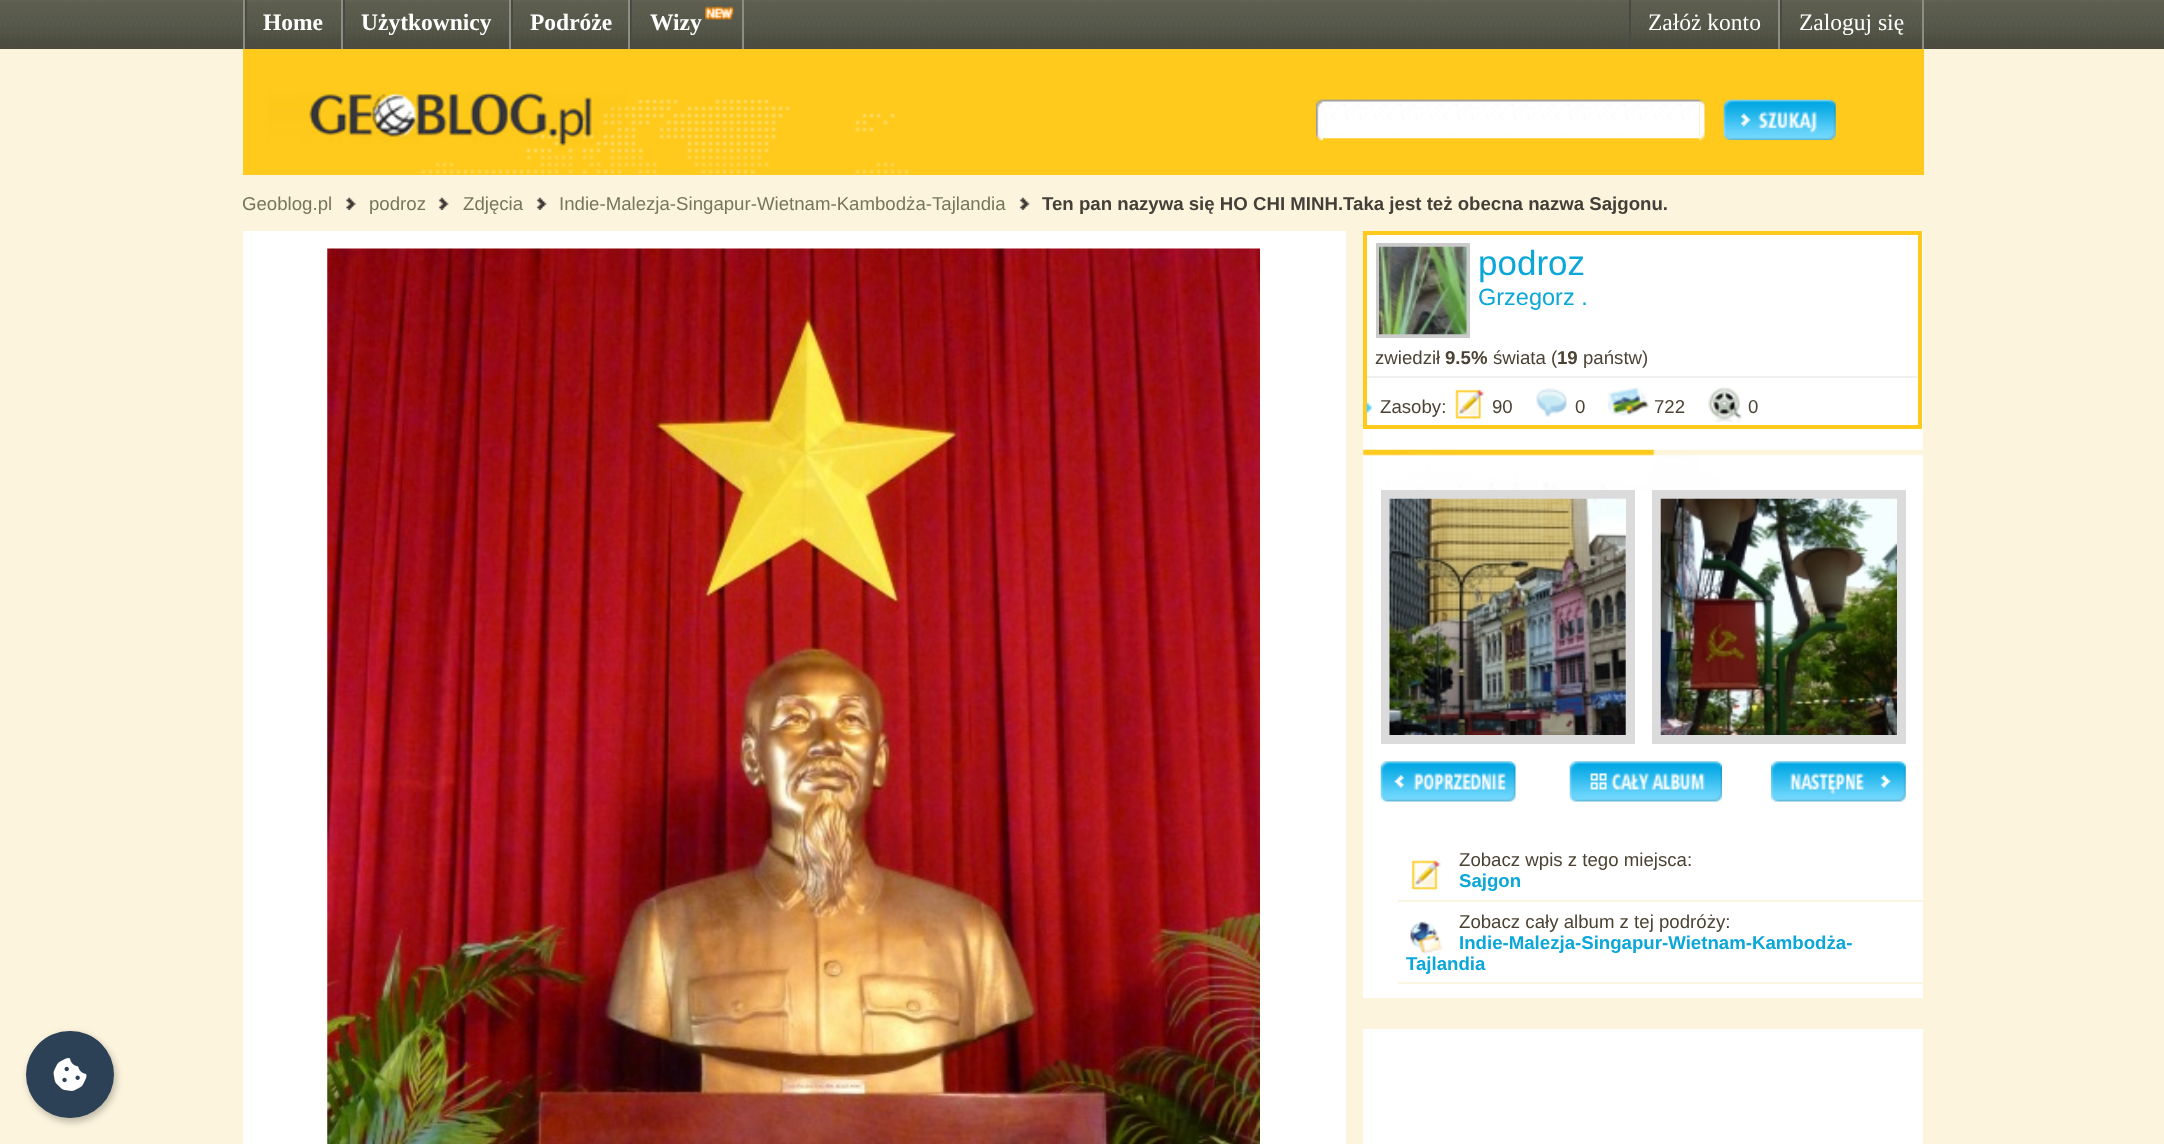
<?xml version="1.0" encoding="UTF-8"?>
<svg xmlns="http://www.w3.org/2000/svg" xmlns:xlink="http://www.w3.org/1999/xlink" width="2164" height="1144">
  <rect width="100%" height="100%" fill="#fcf4dd" />
  <image x="0" y="0" width="2164" height="49" xlink:href="image1.png" />
  <rect x="243" width="2" height="49" fill="#8c8d83" />
  <rect x="341" width="2" height="49" fill="#8c8d83" />
  <rect x="245" width="2" height="49" fill="#494a41" />
  <rect x="509" width="2" height="49" fill="#8c8d83" />
  <rect x="343" width="2" height="49" fill="#494a41" />
  <rect x="628" width="2" height="49" fill="#8c8d83" />
  <rect x="511" width="2" height="49" fill="#494a41" />
  <rect x="742" width="2" height="49" fill="#8c8d83" />
  <rect x="630" width="2" height="49" fill="#494a41" />
  <image x="705" y="6" width="29" height="14" xlink:href="image2.png" />
  <rect x="1778" width="2" height="49" fill="#8c8d83" />
  <rect x="1629" width="2" height="49" fill="#494a41" />
  <rect x="1922" width="2" height="49" fill="#8c8d83" />
  <rect x="1780" width="2" height="49" fill="#494a41" />
  <rect x="243" y="49" width="1681" height="126" fill="#ffca1c" />
  <image x="244" y="91" width="665" height="84" xlink:href="image3.png" />
  <image x="1316" y="98" width="7" height="44" xlink:href="image4.png" />
  <image x="1323" y="98" width="377" height="41" xlink:href="image5.png" />
  <image x="1699" y="98" width="8" height="44" xlink:href="image6.png" />
  <image x="1723" y="99" width="113" height="41" xlink:href="image7.png" />
  <image x="346" y="197" width="10" height="13" xlink:href="image8.png" />
  <image x="438" y="197" width="11" height="13" xlink:href="image9.png" />
  <image x="536" y="197" width="11" height="13" xlink:href="image10.png" />
  <image x="1019" y="197" width="11" height="13" xlink:href="image9.png" />
  <rect x="243" y="231" width="1103" height="913" fill="#ffffff" />
  <image x="327" y="248" width="933" height="896" xlink:href="image11.png" />
  <rect x="1363" y="231" width="560" height="767" fill="#ffffff" />
  <rect x="1365" y="233" width="555" height="194" fill="none" stroke="#ffca1c" stroke-width="4" />
  <rect x="1367" y="376" width="551" height="2" fill="#f0f0f0" />
  <rect x="1378" y="245" width="90" height="91" fill="none" stroke="#cacaca" stroke-width="4" />
  <image x="1379" y="246" width="88" height="89" xlink:href="image12.png" />
  <image x="1366" y="402" width="6" height="11" xlink:href="image13.png" />
  <image x="1455" y="389" width="30" height="30" xlink:href="image14.png" />
  <image x="1536" y="388" width="31" height="29" xlink:href="image15.png" />
  <image x="1608" y="387" width="41" height="29" xlink:href="image16.png" />
  <image x="1708" y="387" width="34" height="35" xlink:href="image17.png" />
  <image x="1363" y="449" width="561" height="41" xlink:href="image18.png" />
  <rect x="1385.5" y="494.5" width="245" height="245" fill="none" stroke="#dbdbdb" stroke-width="9" />
  <image x="1389" y="498" width="237" height="237" xlink:href="image19.png" />
  <rect x="1656.5" y="494.5" width="245" height="245" fill="none" stroke="#dbdbdb" stroke-width="9" />
  <image x="1660" y="498" width="237" height="237" xlink:href="image20.png" />
  <image x="1380" y="761" width="136" height="41" xlink:href="image21.png" />
  <image x="1569" y="761" width="153" height="41" xlink:href="image22.png" />
  <image x="1771" y="761" width="135" height="41" xlink:href="image23.png" />
  <rect x="1398" y="900" width="525" height="2" fill="#faf5df" />
  <image x="1411" y="860" width="30" height="30" xlink:href="image24.png" />
  <rect x="1398" y="982" width="525" height="2" fill="#faf5df" />
  <image x="1410" y="921" width="32" height="33" xlink:href="image25.png" />
  <rect x="1363" y="1029" width="560" height="115" fill="#ffffff" />
  <rect x="28" y="1034" width="88" height="88" rx="44" fill="#000000" fill-opacity="0.25" filter="blur(3.5px)" />
  <rect x="26" y="1031" width="88" height="87" rx="43.5" fill="#2d4156" />
  <image x="53" y="1058" width="34" height="33" xlink:href="image26.png" />
  <text x="263" y="30" style="font-family: Liberation Serif; font-size: 23.5px; font-weight: bold; fill: #ffffff">Home</text>
  <text x="361" y="30" style="font-family: Liberation Serif; font-size: 23.5px; font-weight: bold; fill: #ffffff">Użytkownicy</text>
  <text x="530" y="30" style="font-family: Liberation Serif; font-size: 23.5px; font-weight: bold; fill: #ffffff">Podróże</text>
  <text x="650" y="30" style="font-family: Liberation Serif; font-size: 23.5px; font-weight: bold; fill: #ffffff">Wizy</text>
  <text x="1648" y="30" style="font-family: Liberation Serif; font-size: 23.5px; fill: #ffffff">Załóż konto</text>
  <text x="1799" y="30" style="font-family: Liberation Serif; font-size: 23.5px; fill: #ffffff">Zaloguj się</text>
  <text x="242" y="210" style="font-family: Liberation Sans; font-size: 18.65px; fill: #76765c">Geoblog.pl</text>
  <text x="369" y="210" style="font-family: Liberation Sans; font-size: 18.65px; fill: #76765c">podroz</text>
  <text x="463" y="210" style="font-family: Liberation Sans; font-size: 18.65px; fill: #76765c">Zdjęcia</text>
  <text x="559" y="210" style="font-family: Liberation Sans; font-size: 18.65px; fill: #76765c">Indie-Malezja-Singapur-Wietnam-Kambodża-Tajlandia</text>
  <text x="1042" y="210" style="font-family: Liberation Sans; font-size: 18.65px; font-weight: bold; fill: #443f39">Ten pan nazywa się HO CHI MINH.Taka jest też obecna nazwa Sajgonu.</text>
  <text x="1478" y="275" style="font-family: Liberation Sans; font-size: 35px; fill: #0ba7d8">podroz</text>
  <text x="1478" y="305" style="font-family: Liberation Sans; font-size: 23.5px; fill: #0ba7d8">Grzegorz .</text>
  <text x="1375" y="364" style="font-family: Liberation Sans; font-size: 18.65px; fill: #4b4233">zwiedził</text>
  <text x="1445" y="364" style="font-family: Liberation Sans; font-size: 18.65px; font-weight: bold; fill: #4b4233">9.5%</text>
  <text x="1493" y="364" style="font-family: Liberation Sans; font-size: 18.65px; fill: #4b4233">świata (</text>
  <text x="1557" y="364" style="font-family: Liberation Sans; font-size: 18.65px; font-weight: bold; fill: #4b4233">19</text>
  <text x="1583" y="364" style="font-family: Liberation Sans; font-size: 18.65px; fill: #4b4233">państw)</text>
  <text x="1380" y="413" style="font-family: Liberation Sans; font-size: 18.65px; fill: #4b4233">Zasoby:</text>
  <text x="1492" y="413" style="font-family: Liberation Sans; font-size: 18.65px; fill: #4b4233">90</text>
  <text x="1575" y="413" style="font-family: Liberation Sans; font-size: 18.65px; fill: #4b4233">0</text>
  <text x="1654" y="413" style="font-family: Liberation Sans; font-size: 18.65px; fill: #4b4233">722</text>
  <text x="1748" y="413" style="font-family: Liberation Sans; font-size: 18.65px; fill: #4b4233">0</text>
  <text x="1459" y="866" style="font-family: Liberation Sans; font-size: 18.65px; fill: #4b4233">Zobacz wpis z tego miejsca:</text>
  <text x="1459" y="887" style="font-family: Liberation Sans; font-size: 18.65px; font-weight: bold; fill: #0ba7d8">Sajgon</text>
  <text x="1459" y="928" style="font-family: Liberation Sans; font-size: 18.65px; fill: #4b4233">Zobacz cały album z tej podróży:</text>
  <text x="1459" y="949" style="font-family: Liberation Sans; font-size: 18.65px; font-weight: bold; fill: #0ba7d8">Indie-Malezja-Singapur-Wietnam-Kambodża-</text>
  <text x="1406" y="970" style="font-family: Liberation Sans; font-size: 18.65px; font-weight: bold; fill: #0ba7d8">Tajlandia</text>
</svg>
